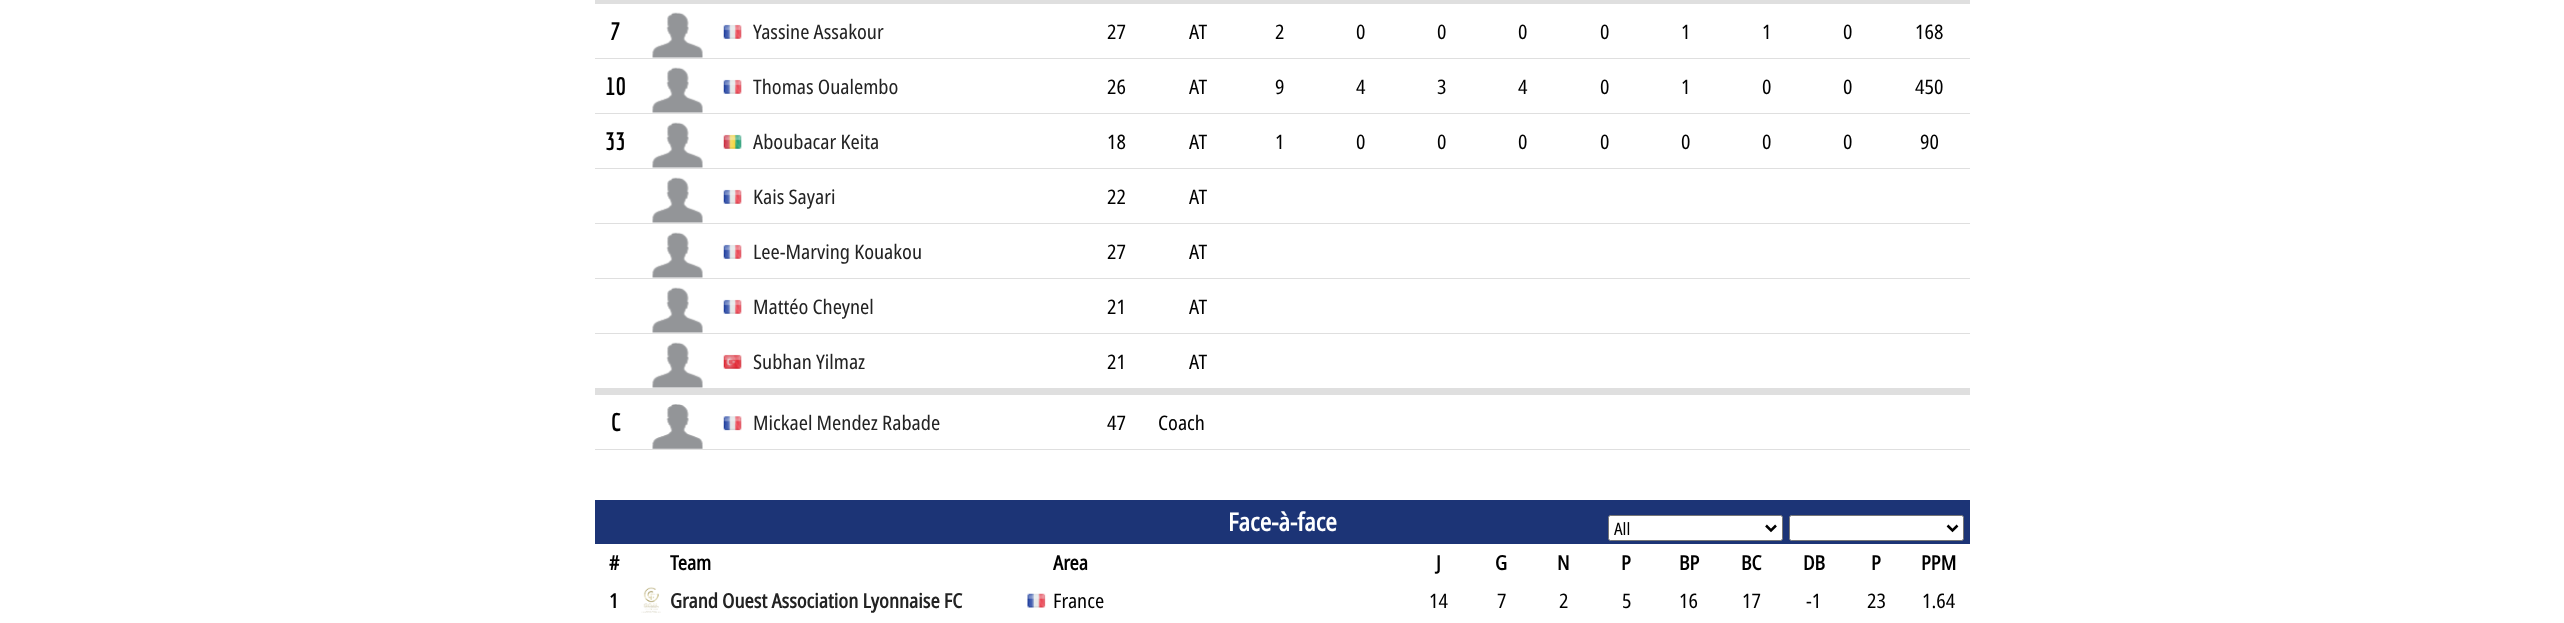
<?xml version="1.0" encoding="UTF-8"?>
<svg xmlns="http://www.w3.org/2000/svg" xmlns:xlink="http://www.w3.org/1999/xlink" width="2564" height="623">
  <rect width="100%" height="100%" fill="#ffffff" />
  <rect x="595" width="1375" height="4" fill="#dfdfdf" />
  <rect x="595" y="58" width="1375" height="1" fill="#dfdfdf" />
  <image x="652" y="12" width="51" height="46" xlink:href="image1.png" />
  <image x="723" y="24" width="19" height="15" xlink:href="image2.png" />
  <rect x="595" y="113" width="1375" height="1" fill="#dfdfdf" />
  <image x="652" y="67" width="51" height="46" xlink:href="image1.png" />
  <image x="723" y="79" width="19" height="15" xlink:href="image2.png" />
  <rect x="595" y="168" width="1375" height="1" fill="#dfdfdf" />
  <image x="652" y="122" width="51" height="46" xlink:href="image1.png" />
  <image x="723" y="134" width="19" height="15" xlink:href="image3.png" />
  <rect x="595" y="223" width="1375" height="1" fill="#dfdfdf" />
  <image x="652" y="177" width="51" height="46" xlink:href="image1.png" />
  <image x="723" y="189" width="19" height="15" xlink:href="image2.png" />
  <rect x="595" y="278" width="1375" height="1" fill="#dfdfdf" />
  <image x="652" y="232" width="51" height="46" xlink:href="image1.png" />
  <image x="723" y="244" width="19" height="15" xlink:href="image4.png" />
  <rect x="595" y="333" width="1375" height="1" fill="#dfdfdf" />
  <image x="652" y="287" width="51" height="46" xlink:href="image1.png" />
  <image x="723" y="299" width="19" height="15" xlink:href="image2.png" />
  <image x="652" y="342" width="51" height="46" xlink:href="image1.png" />
  <image x="723" y="354" width="19" height="15" xlink:href="image5.png" />
  <rect x="595" y="388" width="1375" height="7" fill="#dfdfdf" />
  <rect x="595" y="449" width="1375" height="1" fill="#dfdfdf" />
  <image x="652" y="404" width="51" height="45" xlink:href="image6.png" />
  <image x="723" y="416" width="19" height="15" xlink:href="image7.png" />
  <rect x="595" y="500" width="1375" height="44" fill="#1c3476" />
  <rect x="1608.5" y="515.5" width="174" height="25" rx="2" fill="#ffffff" stroke="#767676" />
  <path d="M 1766 525.5 l 5 5 l 5 -5" fill="none" stroke="#000000" stroke-width="2.5" />
  <rect x="1789.5" y="515.5" width="174" height="25" rx="2" fill="#ffffff" stroke="#767676" />
  <path d="M 1947.5 525.5 l 5 5 l 5 -5" fill="none" stroke="#000000" stroke-width="2.5" />
  <image x="641" y="587" width="20" height="26" xlink:href="image8.png" />
  <image x="1027" y="593" width="19" height="15" xlink:href="image9.png" />
  <text x="610" y="40" style="font-family: Economica; font-size: 25px; font-weight: bold; fill: #000000">7</text>
  <text x="753" y="39" style="font-family: Noto Sans; font-size: 20px; fill: #232323">Yassine Assakour</text>
  <text x="1107" y="39" style="font-family: Noto Sans; font-size: 20px; fill: #000000">27</text>
  <text x="1189" y="39" style="font-family: Noto Sans; font-size: 20px; fill: #000000">AT</text>
  <text x="1275" y="39" style="font-family: Noto Sans; font-size: 20px; fill: #000000">2</text>
  <text x="1356" y="39" style="font-family: Noto Sans; font-size: 20px; fill: #000000">0</text>
  <text x="1437" y="39" style="font-family: Noto Sans; font-size: 20px; fill: #000000">0</text>
  <text x="1518" y="39" style="font-family: Noto Sans; font-size: 20px; fill: #000000">0</text>
  <text x="1600" y="39" style="font-family: Noto Sans; font-size: 20px; fill: #000000">0</text>
  <text x="1681" y="39" style="font-family: Noto Sans; font-size: 20px; fill: #000000">1</text>
  <text x="1762" y="39" style="font-family: Noto Sans; font-size: 20px; fill: #000000">1</text>
  <text x="1843" y="39" style="font-family: Noto Sans; font-size: 20px; fill: #000000">0</text>
  <text x="1915" y="39" style="font-family: Noto Sans; font-size: 20px; fill: #000000">168</text>
  <text x="605" y="95" style="font-family: Economica; font-size: 25px; font-weight: bold; fill: #000000">10</text>
  <text x="753" y="94" style="font-family: Noto Sans; font-size: 20px; fill: #232323">Thomas Oualembo</text>
  <text x="1107" y="94" style="font-family: Noto Sans; font-size: 20px; fill: #000000">26</text>
  <text x="1189" y="94" style="font-family: Noto Sans; font-size: 20px; fill: #000000">AT</text>
  <text x="1275" y="94" style="font-family: Noto Sans; font-size: 20px; fill: #000000">9</text>
  <text x="1356" y="94" style="font-family: Noto Sans; font-size: 20px; fill: #000000">4</text>
  <text x="1437" y="94" style="font-family: Noto Sans; font-size: 20px; fill: #000000">3</text>
  <text x="1518" y="94" style="font-family: Noto Sans; font-size: 20px; fill: #000000">4</text>
  <text x="1600" y="94" style="font-family: Noto Sans; font-size: 20px; fill: #000000">0</text>
  <text x="1681" y="94" style="font-family: Noto Sans; font-size: 20px; fill: #000000">1</text>
  <text x="1762" y="94" style="font-family: Noto Sans; font-size: 20px; fill: #000000">0</text>
  <text x="1843" y="94" style="font-family: Noto Sans; font-size: 20px; fill: #000000">0</text>
  <text x="1915" y="94" style="font-family: Noto Sans; font-size: 20px; fill: #000000">450</text>
  <text x="605" y="150" style="font-family: Economica; font-size: 25px; font-weight: bold; fill: #000000">33</text>
  <text x="753" y="149" style="font-family: Noto Sans; font-size: 20px; fill: #232323">Aboubacar Keita</text>
  <text x="1107" y="149" style="font-family: Noto Sans; font-size: 20px; fill: #000000">18</text>
  <text x="1189" y="149" style="font-family: Noto Sans; font-size: 20px; fill: #000000">AT</text>
  <text x="1275" y="149" style="font-family: Noto Sans; font-size: 20px; fill: #000000">1</text>
  <text x="1356" y="149" style="font-family: Noto Sans; font-size: 20px; fill: #000000">0</text>
  <text x="1437" y="149" style="font-family: Noto Sans; font-size: 20px; fill: #000000">0</text>
  <text x="1518" y="149" style="font-family: Noto Sans; font-size: 20px; fill: #000000">0</text>
  <text x="1600" y="149" style="font-family: Noto Sans; font-size: 20px; fill: #000000">0</text>
  <text x="1681" y="149" style="font-family: Noto Sans; font-size: 20px; fill: #000000">0</text>
  <text x="1762" y="149" style="font-family: Noto Sans; font-size: 20px; fill: #000000">0</text>
  <text x="1843" y="149" style="font-family: Noto Sans; font-size: 20px; fill: #000000">0</text>
  <text x="1920" y="149" style="font-family: Noto Sans; font-size: 20px; fill: #000000">90</text>
  <text x="753" y="204" style="font-family: Noto Sans; font-size: 20px; fill: #232323">Kais Sayari</text>
  <text x="1107" y="204" style="font-family: Noto Sans; font-size: 20px; fill: #000000">22</text>
  <text x="1189" y="204" style="font-family: Noto Sans; font-size: 20px; fill: #000000">AT</text>
  <text x="753" y="259" style="font-family: Noto Sans; font-size: 20px; fill: #232323">Lee-Marving Kouakou</text>
  <text x="1107" y="259" style="font-family: Noto Sans; font-size: 20px; fill: #000000">27</text>
  <text x="1189" y="259" style="font-family: Noto Sans; font-size: 20px; fill: #000000">AT</text>
  <text x="753" y="314" style="font-family: Noto Sans; font-size: 20px; fill: #232323">Mattéo Cheynel</text>
  <text x="1107" y="314" style="font-family: Noto Sans; font-size: 20px; fill: #000000">21</text>
  <text x="1189" y="314" style="font-family: Noto Sans; font-size: 20px; fill: #000000">AT</text>
  <text x="753" y="369" style="font-family: Noto Sans; font-size: 20px; fill: #232323">Subhan Yilmaz</text>
  <text x="1107" y="369" style="font-family: Noto Sans; font-size: 20px; fill: #000000">21</text>
  <text x="1189" y="369" style="font-family: Noto Sans; font-size: 20px; fill: #000000">AT</text>
  <text x="611" y="431" style="font-family: Economica; font-size: 25px; font-weight: bold; fill: #000000">C</text>
  <text x="753" y="430" style="font-family: Noto Sans; font-size: 20px; fill: #232323">Mickael Mendez Rabade</text>
  <text x="1107" y="430" style="font-family: Noto Sans; font-size: 20px; fill: #000000">47</text>
  <text x="1158" y="430" style="font-family: Noto Sans; font-size: 20px; fill: #000000">Coach</text>
  <text x="1228" y="531" style="font-family: Noto Sans; font-size: 25px; font-weight: bold; fill: #ffffff">Face-à-face</text>
  <text x="1614" y="535" style="font-family: Noto Sans; font-size: 17px; fill: #000000">All</text>
  <text x="609" y="570" style="font-family: Noto Sans; font-size: 20px; font-weight: bold; fill: #000000">#</text>
  <text x="670" y="570" style="font-family: Noto Sans; font-size: 20px; font-weight: bold; fill: #000000">Team</text>
  <text x="1053" y="570" style="font-family: Noto Sans; font-size: 20px; font-weight: bold; fill: #000000">Area</text>
  <text x="1436" y="570" style="font-family: Noto Sans; font-size: 20px; font-weight: bold; fill: #000000">J</text>
  <text x="1495" y="570" style="font-family: Noto Sans; font-size: 20px; font-weight: bold; fill: #000000">G</text>
  <text x="1557" y="570" style="font-family: Noto Sans; font-size: 20px; font-weight: bold; fill: #000000">N</text>
  <text x="1621" y="570" style="font-family: Noto Sans; font-size: 20px; font-weight: bold; fill: #000000">P</text>
  <text x="1679" y="570" style="font-family: Noto Sans; font-size: 20px; font-weight: bold; fill: #000000">BP</text>
  <text x="1741" y="570" style="font-family: Noto Sans; font-size: 20px; font-weight: bold; fill: #000000">BC</text>
  <text x="1803" y="570" style="font-family: Noto Sans; font-size: 20px; font-weight: bold; fill: #000000">DB</text>
  <text x="1871" y="570" style="font-family: Noto Sans; font-size: 20px; font-weight: bold; fill: #000000">P</text>
  <text x="1921" y="570" style="font-family: Noto Sans; font-size: 20px; font-weight: bold; fill: #000000">PPM</text>
  <text x="609" y="608" style="font-family: Noto Sans; font-size: 20px; font-weight: bold; fill: #000000">1</text>
  <text x="670" y="608" style="font-family: Noto Sans; font-size: 20px; font-weight: bold; fill: #232323">Grand Ouest Association Lyonnaise FC</text>
  <text x="1053" y="608" style="font-family: Noto Sans; font-size: 20px; fill: #000000">France</text>
  <text x="1429" y="608" style="font-family: Noto Sans; font-size: 20px; fill: #000000">14</text>
  <text x="1497" y="608" style="font-family: Noto Sans; font-size: 20px; fill: #000000">7</text>
  <text x="1559" y="608" style="font-family: Noto Sans; font-size: 20px; fill: #000000">2</text>
  <text x="1622" y="608" style="font-family: Noto Sans; font-size: 20px; fill: #000000">5</text>
  <text x="1679" y="608" style="font-family: Noto Sans; font-size: 20px; fill: #000000">16</text>
  <text x="1742" y="608" style="font-family: Noto Sans; font-size: 20px; fill: #000000">17</text>
  <text x="1806" y="608" style="font-family: Noto Sans; font-size: 20px; fill: #000000">-1</text>
  <text x="1867" y="608" style="font-family: Noto Sans; font-size: 20px; fill: #000000">23</text>
  <text x="1922" y="608" style="font-family: Noto Sans; font-size: 20px; fill: #000000">1.64</text>
</svg>
